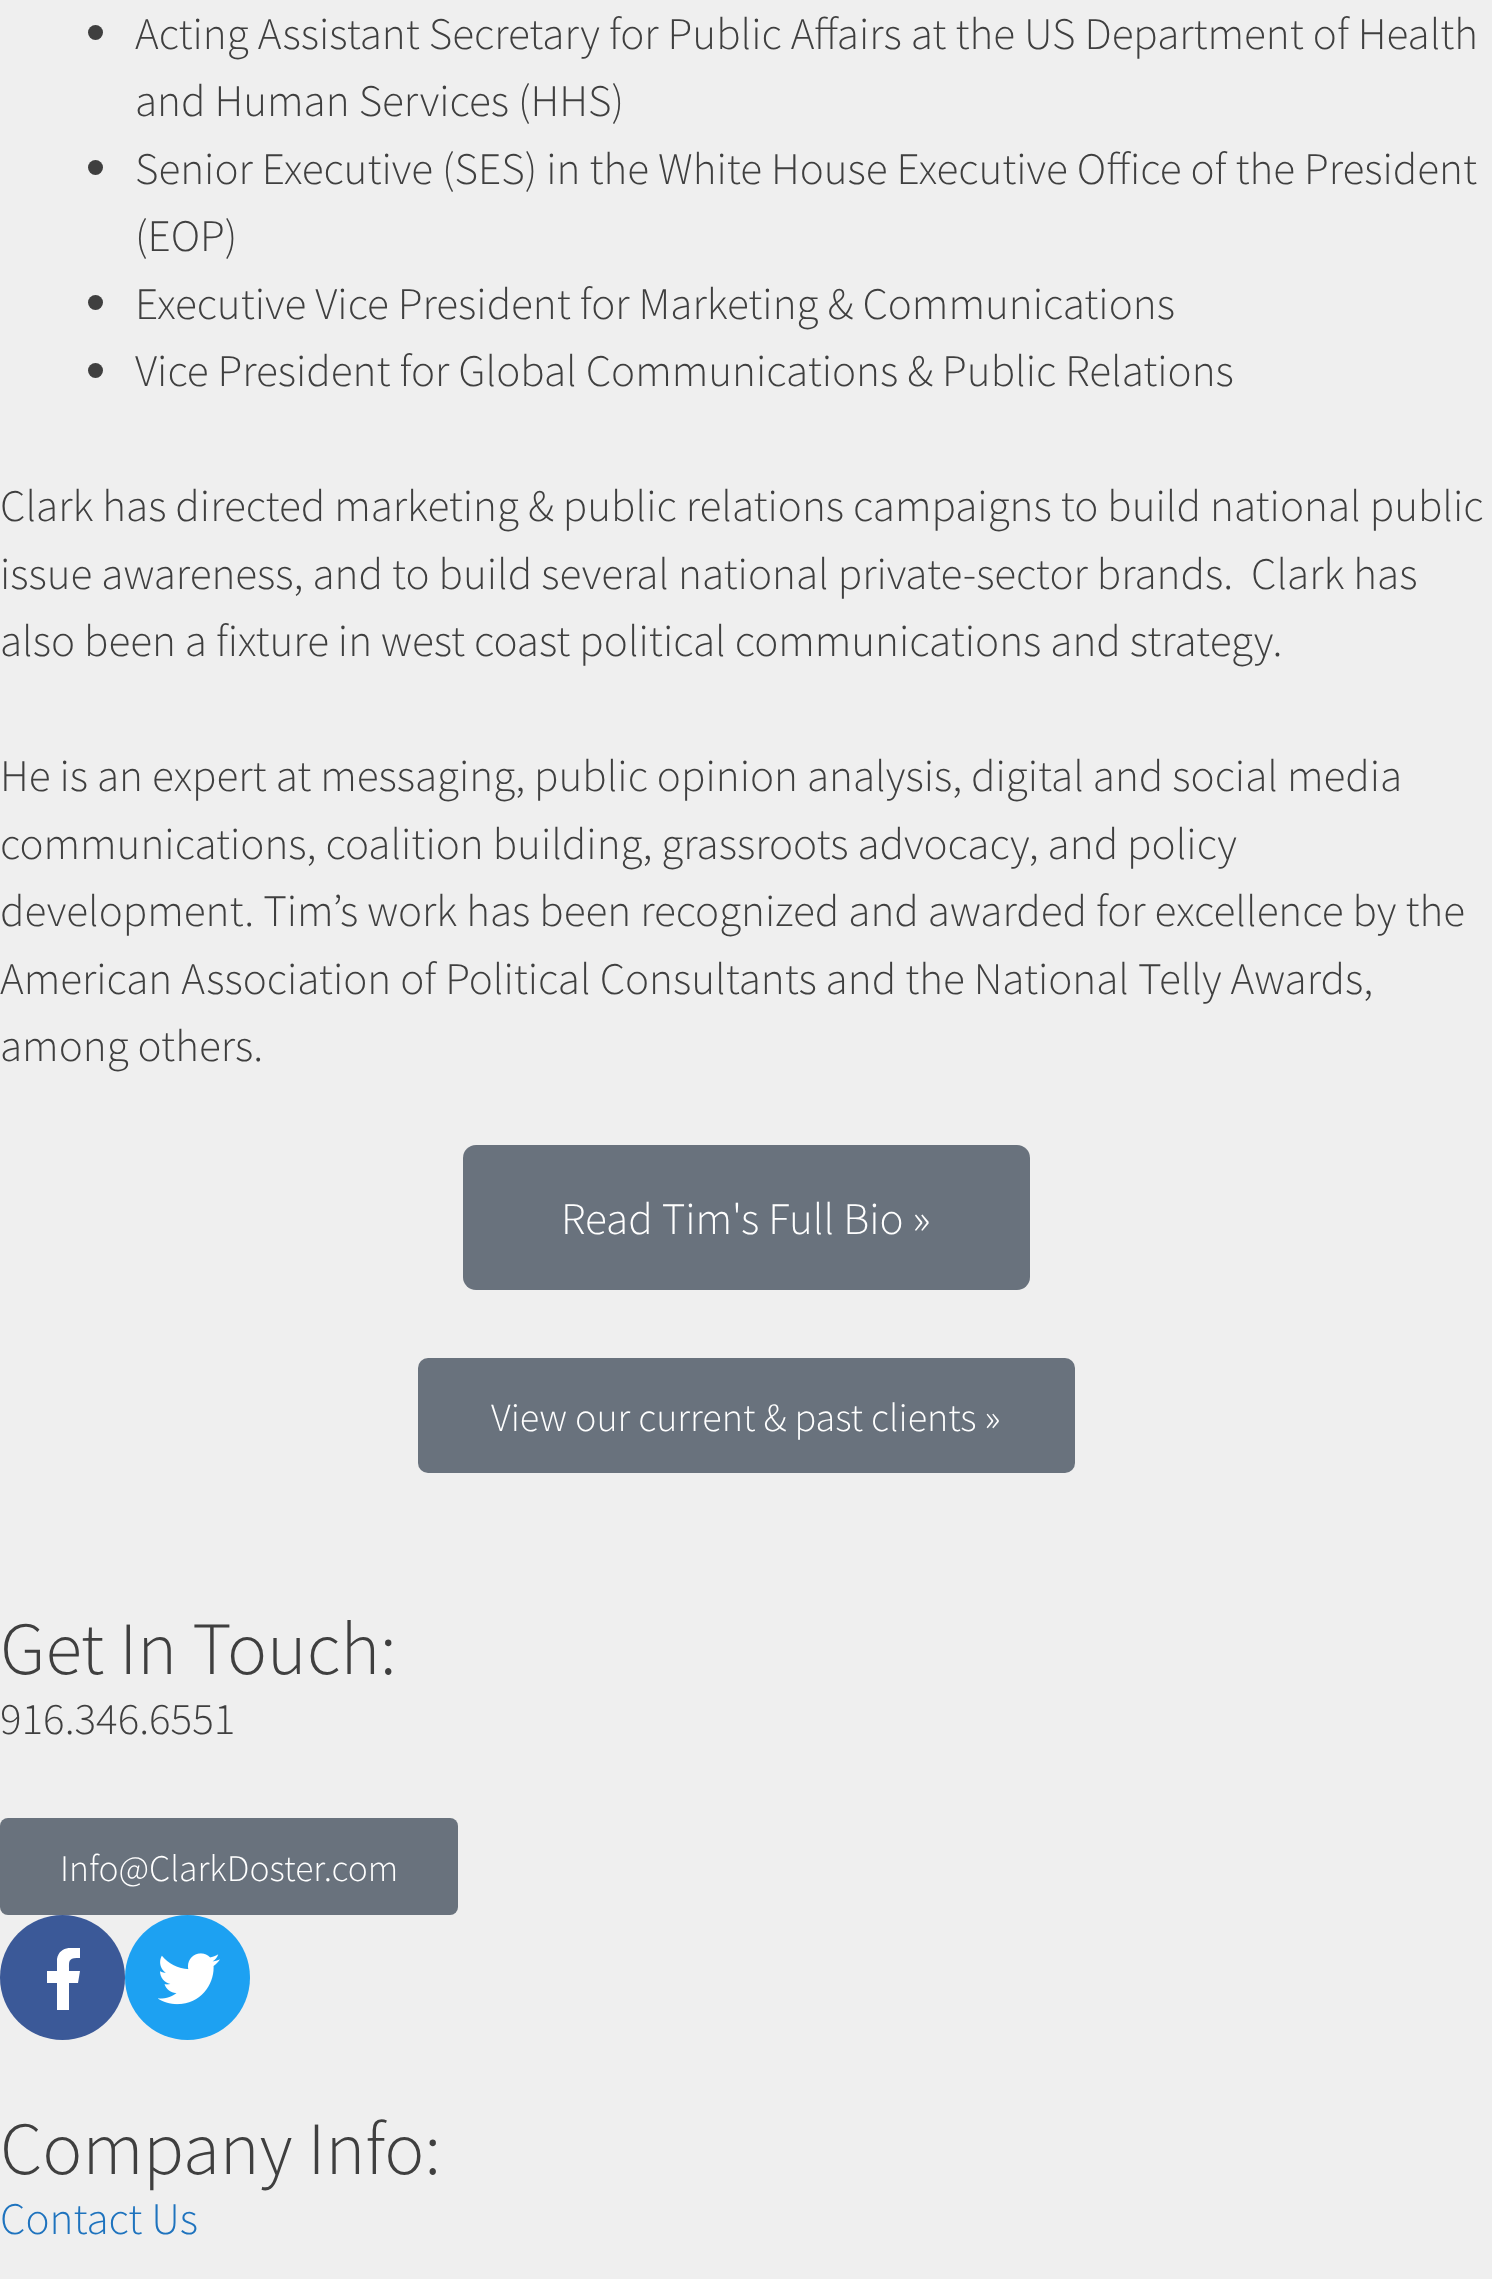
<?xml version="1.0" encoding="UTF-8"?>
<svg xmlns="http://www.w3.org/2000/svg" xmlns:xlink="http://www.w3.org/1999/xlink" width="1492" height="2279">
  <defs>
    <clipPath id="clip1"><rect x="33" y="1948" width="62" height="62" /></clipPath>
  </defs>
  <rect width="100%" height="100%" fill="#efefef" />
  <circle cx="95.5" cy="32.5" r="7.5" fill="#3f3f3f" />
  <circle cx="95.5" cy="167.5" r="7.5" fill="#3f3f3f" />
  <circle cx="95.5" cy="302.5" r="7.5" fill="#3f3f3f" />
  <circle cx="95.5" cy="370.5" r="7.5" fill="#3f3f3f" />
  <rect x="463" y="1145" width="567" height="145" rx="13" fill="#69727d" />
  <rect x="418" y="1358" width="657" height="115" rx="10" fill="#69727d" />
  <rect y="1818" width="458" height="97" rx="8" fill="#69727d" />
  <circle cx="62.5" cy="1977.5" r="62.5" fill="#3b5998" />
  <g clip-path="url(#clip1)">
    <path d="M 78 1983 l 2 -12 h -11 c 0 -11 -1 -13 11 -13 v -10 c -9 -1 -21 -1 -23 11 v 12 h -10 v 12 h 10 v 27 h 12 v -27 z" fill="#ffffff" />
  </g>
  <circle cx="187.5" cy="1977.5" r="62.5" fill="#1da1f2" />
  <image x="158" y="1953" width="62" height="52" xlink:href="image1.png" />
  <text x="135" y="49" style="font-family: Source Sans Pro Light; font-size: 45px; font-weight: 300; fill: #3f3f3f">Acting Assistant Secretary for Public Affairs at the US Department of Health</text>
  <text x="135" y="116" style="font-family: Source Sans Pro Light; font-size: 45px; font-weight: 300; fill: #3f3f3f">and Human Services (HHS)</text>
  <text x="135" y="184" style="font-family: Source Sans Pro Light; font-size: 45px; font-weight: 300; fill: #3f3f3f">Senior Executive (SES) in the White House Executive Office of the President</text>
  <text x="135" y="251" style="font-family: Source Sans Pro Light; font-size: 45px; font-weight: 300; fill: #3f3f3f">(EOP)</text>
  <text x="135" y="319" style="font-family: Source Sans Pro Light; font-size: 45px; font-weight: 300; fill: #3f3f3f">Executive Vice President for Marketing &amp; Communications</text>
  <text x="135" y="386" style="font-family: Source Sans Pro Light; font-size: 45px; font-weight: 300; fill: #3f3f3f">Vice President for Global Communications &amp; Public Relations</text>
  <text x="0" y="521" style="font-family: Source Sans Pro Light; font-size: 45px; font-weight: 300; fill: #3f3f3f">Clark has directed marketing &amp; public relations campaigns to build national public</text>
  <text x="0" y="589" style="font-family: Source Sans Pro Light; font-size: 45px; font-weight: 300; fill: #3f3f3f" xml:space="preserve">issue awareness, and to build several national private-sector brands.  Clark has</text>
  <text x="0" y="656" style="font-family: Source Sans Pro Light; font-size: 45px; font-weight: 300; fill: #3f3f3f">also been a fixture in west coast political communications and strategy.</text>
  <text x="0" y="791" style="font-family: Source Sans Pro Light; font-size: 45px; font-weight: 300; fill: #3f3f3f">He is an expert at messaging, public opinion analysis, digital and social media</text>
  <text x="0" y="859" style="font-family: Source Sans Pro Light; font-size: 45px; font-weight: 300; fill: #3f3f3f">communications, coalition building, grassroots advocacy, and policy</text>
  <text x="0" y="926" style="font-family: Source Sans Pro Light; font-size: 45px; font-weight: 300; fill: #3f3f3f">development. Tim’s work has been recognized and awarded for excellence by the</text>
  <text x="0" y="994" style="font-family: Source Sans Pro Light; font-size: 45px; font-weight: 300; fill: #3f3f3f">American Association of Political Consultants and the National Telly Awards,</text>
  <text x="0" y="1061" style="font-family: Source Sans Pro Light; font-size: 45px; font-weight: 300; fill: #3f3f3f">among others.</text>
  <text x="561" y="1234" style="font-family: Source Sans Pro Light; font-size: 45px; font-weight: 300; fill: #ffffff">Read Tim's Full Bio »</text>
  <text x="491" y="1431" style="font-family: Source Sans Pro Light; font-size: 40px; font-weight: 300; fill: #ffffff">View our current &amp; past clients »</text>
  <text x="0" y="1674" style="font-family: Source Sans Pro Light; font-size: 75px; font-weight: 300; fill: #3f3f3f">Get In Touch:</text>
  <text x="0" y="1734" style="font-family: Source Sans Pro Light; font-size: 45px; font-weight: 300; fill: #3f3f3f">916.346.6551</text>
  <text x="60" y="1881" style="font-family: Source Sans Pro Light; font-size: 37.5px; font-weight: 300; fill: #ffffff">Info@ClarkDoster.com</text>
  <text x="0" y="2174" style="font-family: Source Sans Pro Light; font-size: 75px; font-weight: 300; fill: #3f3f3f">Company Info:</text>
  <text x="0" y="2234" style="font-family: Source Sans Pro Light; font-size: 45px; font-weight: 300; fill: #1e73be">Contact Us</text>
</svg>
